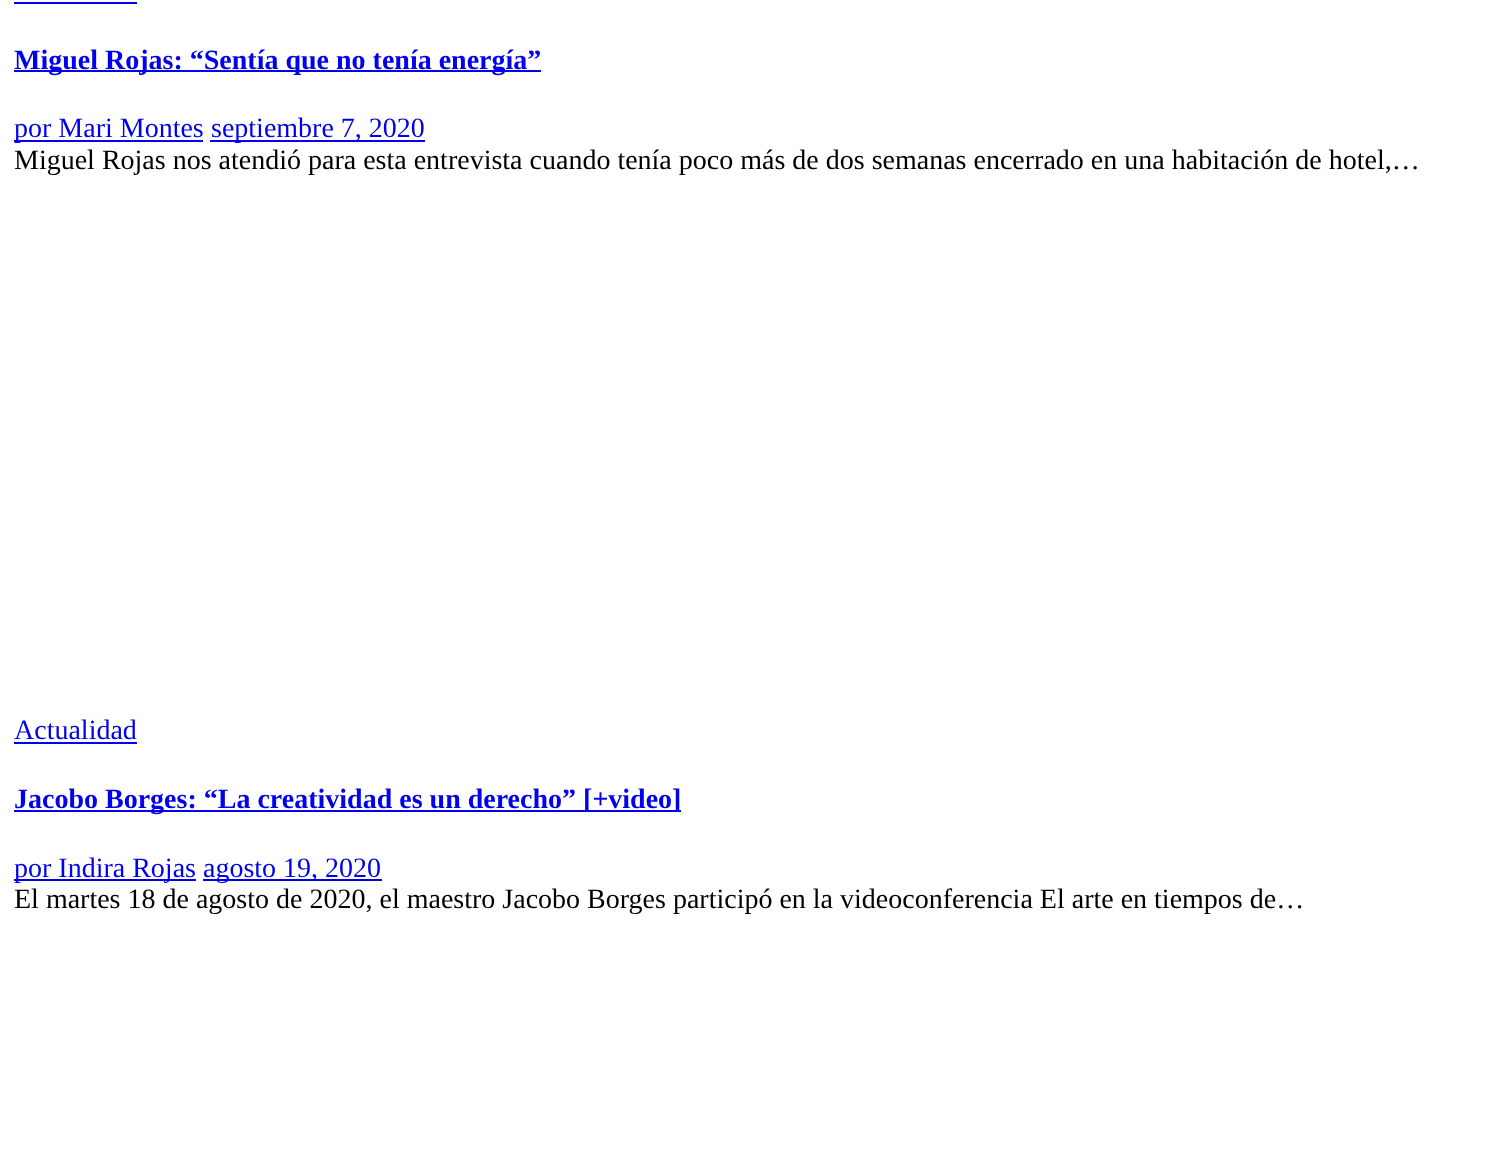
<?xml version="1.0" encoding="UTF-8"?>
<svg xmlns="http://www.w3.org/2000/svg" xmlns:xlink="http://www.w3.org/1999/xlink" width="1491" height="1161">
  <rect width="100%" height="100%" fill="#ffffff" />
  <rect x="14" y="2" width="123" height="2" fill="#0000ee" />
  <rect x="14" y="70" width="527" height="2" fill="#0000ee" />
  <rect x="14" y="140" width="189" height="2" fill="#0000ee" />
  <rect x="210" y="140" width="215" height="2" fill="#0000ee" />
  <rect x="14" y="742" width="123" height="2" fill="#0000ee" />
  <rect x="14" y="810" width="667" height="2" fill="#0000ee" />
  <rect x="14" y="879" width="182" height="2" fill="#0000ee" />
  <rect x="203" y="879" width="179" height="2" fill="#0000ee" />
  <text x="14" y="69" style="font-family: Liberation Serif; font-size: 28px; font-weight: bold; fill: #0000ee">Miguel Rojas: “Sentía que no tenía energía”</text>
  <text x="14" y="137" style="font-family: Liberation Serif; font-size: 28px; fill: #0000ee">por Mari Montes</text>
  <text x="211" y="137" style="font-family: Liberation Serif; font-size: 28px; fill: #0000ee">septiembre 7, 2020</text>
  <text x="14" y="169" style="font-family: Liberation Serif; font-size: 28px; fill: #000000">Miguel Rojas nos atendió para esta entrevista cuando tenía poco más de dos semanas encerrado en una habitación de hotel,…</text>
  <text x="14" y="739" style="font-family: Liberation Serif; font-size: 28px; fill: #0000ee">Actualidad</text>
  <text x="14" y="808" style="font-family: Liberation Serif; font-size: 28px; font-weight: bold; fill: #0000ee">Jacobo Borges: “La creatividad es un derecho” [+video]</text>
  <text x="14" y="877" style="font-family: Liberation Serif; font-size: 28px; fill: #0000ee">por Indira Rojas</text>
  <text x="203" y="877" style="font-family: Liberation Serif; font-size: 28px; fill: #0000ee">agosto 19, 2020</text>
  <text x="14" y="908" style="font-family: Liberation Serif; font-size: 28px; fill: #000000">El martes 18 de agosto de 2020, el maestro Jacobo Borges participó en la videoconferencia El arte en tiempos de…</text>
</svg>
